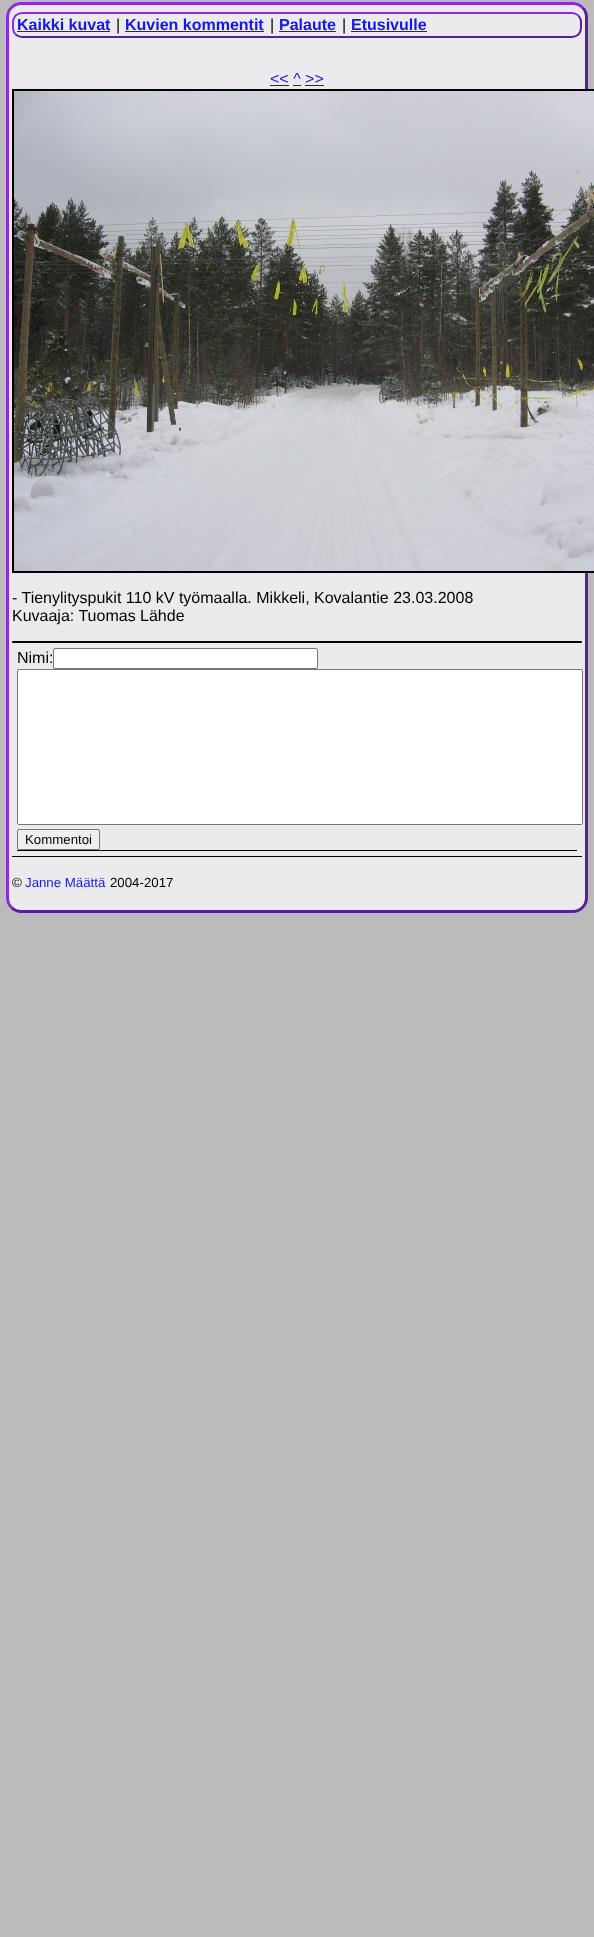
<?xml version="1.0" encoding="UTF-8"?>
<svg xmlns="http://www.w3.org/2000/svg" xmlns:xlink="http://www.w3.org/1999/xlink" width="594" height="1937">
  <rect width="100%" height="100%" fill="#bbbbbb" />
  <rect x="6" y="2" width="582" height="911" rx="15" fill="#ebeaed" />
  <path d="M 582.5 7.5 c 2.5 2.5 4 6 4 9.5 v 881 c 0 3.5 -1.5 7 -4 9.5 c -2.5 2.5 -6 4 -9.5 4 h -552 c -3.5 0 -7 -1.5 -9.5 -4" fill="none" stroke="#5c1d97" stroke-width="3" />
  <path d="M 11.5 907.5 c -2.5 -2.5 -4 -6 -4 -9.5 v -881 c 0 -3.5 1.5 -7 4 -9.5 c 2.5 -2.5 6 -4 9.5 -4 h 552 c 3.5 0 7 1.5 9.5 4" fill="none" stroke="#8a2be2" stroke-width="3" />
  <path d="M 578.5 15.5 c 1.5 2 2.5 4 2.5 6.5 v 6 c 0 2.5 -1 4.5 -2.5 6.5 c -2 1.5 -4 2.5 -6.5 2.5 h -550 c -2.5 0 -4.5 -1 -6.5 -2.5" fill="none" stroke="#5c1d97" stroke-width="2" />
  <path d="M 15.5 34.5 c -1.5 -2 -2.5 -4 -2.5 -6.5 v -6 c 0 -2.5 1 -4.5 2.5 -6.5 c 2 -1.5 4 -2.5 6.5 -2.5 h 550 c 2.5 0 4.5 1 6.5 2.5" fill="none" stroke="#8a2be2" stroke-width="2" />
  <rect x="17" y="31" width="93" height="1" fill="#1515ee" />
  <rect x="125" y="31" width="139" height="1" fill="#1515ee" />
  <rect x="279" y="31" width="57" height="1" fill="#1515ee" />
  <rect x="351" y="31" width="76" height="1" fill="#1515ee" />
  <rect x="270" y="85" width="19" height="1" fill="#1515ee" />
  <rect x="293" y="85" width="8" height="1" fill="#1515ee" />
  <rect x="305" y="85" width="19" height="1" fill="#1515ee" />
  <rect x="13" y="90" width="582" height="482" fill="none" stroke="#000000" stroke-width="2" />
  <image x="14" y="91" width="580" height="480" xlink:href="image1.png" />
  <rect x="12" y="641" width="570" height="2" rx="1" fill="#000000" />
  <rect x="53.5" y="648.5" width="264" height="20" rx="1.5" fill="#ffffff" stroke="#767676" />
  <rect x="17.5" y="669.5" width="565" height="155" rx="1.5" fill="#ffffff" stroke="#767676" />
  <rect x="17.5" y="829.5" width="82" height="20" rx="1.5" fill="#efefef" stroke="#767676" />
  <rect x="17" y="850" width="560" height="1" fill="#000000" />
  <rect x="12" y="856" width="570" height="1" fill="#000000" />
  <text x="17" y="30" style="font-family: Liberation Sans; font-size: 16px; font-weight: bold; fill: #1515ee">Kaikki kuvat</text>
  <text x="116" y="30" style="font-family: Liberation Sans; font-size: 16px; fill: #000000">|</text>
  <text x="125" y="30" style="font-family: Liberation Sans; font-size: 16px; font-weight: bold; fill: #1515ee">Kuvien kommentit</text>
  <text x="270" y="30" style="font-family: Liberation Sans; font-size: 16px; fill: #000000">|</text>
  <text x="279" y="30" style="font-family: Liberation Sans; font-size: 16px; font-weight: bold; fill: #1515ee">Palaute</text>
  <text x="342" y="30" style="font-family: Liberation Sans; font-size: 16px; fill: #000000">|</text>
  <text x="351" y="30" style="font-family: Liberation Sans; font-size: 16px; font-weight: bold; fill: #1515ee">Etusivulle</text>
  <text x="270" y="84" style="font-family: Liberation Sans; font-size: 16px; fill: #1515ee">&lt;&lt; ^ &gt;&gt;</text>
  <text x="12" y="603" style="font-family: Liberation Sans; font-size: 16px; fill: #000000">- Tienylityspukit 110 kV työmaalla. Mikkeli, Kovalantie 23.03.2008</text>
  <text x="12" y="621" style="font-family: Liberation Sans; font-size: 16px; fill: #000000">Kuvaaja: Tuomas Lähde</text>
  <text x="17" y="663" style="font-family: Liberation Sans; font-size: 16px; fill: #000000">Nimi:</text>
  <text x="25" y="844" style="font-family: Liberation Sans; font-size: 13.25px; fill: #000000">Kommentoi</text>
  <text x="12" y="887" style="font-family: Liberation Sans; font-size: 13.25px; fill: #000000">©</text>
  <text x="25" y="887" style="font-family: Liberation Sans; font-size: 13.25px; fill: #1515ee">Janne Määttä</text>
  <text x="110" y="887" style="font-family: Liberation Sans; font-size: 13.25px; fill: #000000">2004-2017</text>
</svg>
